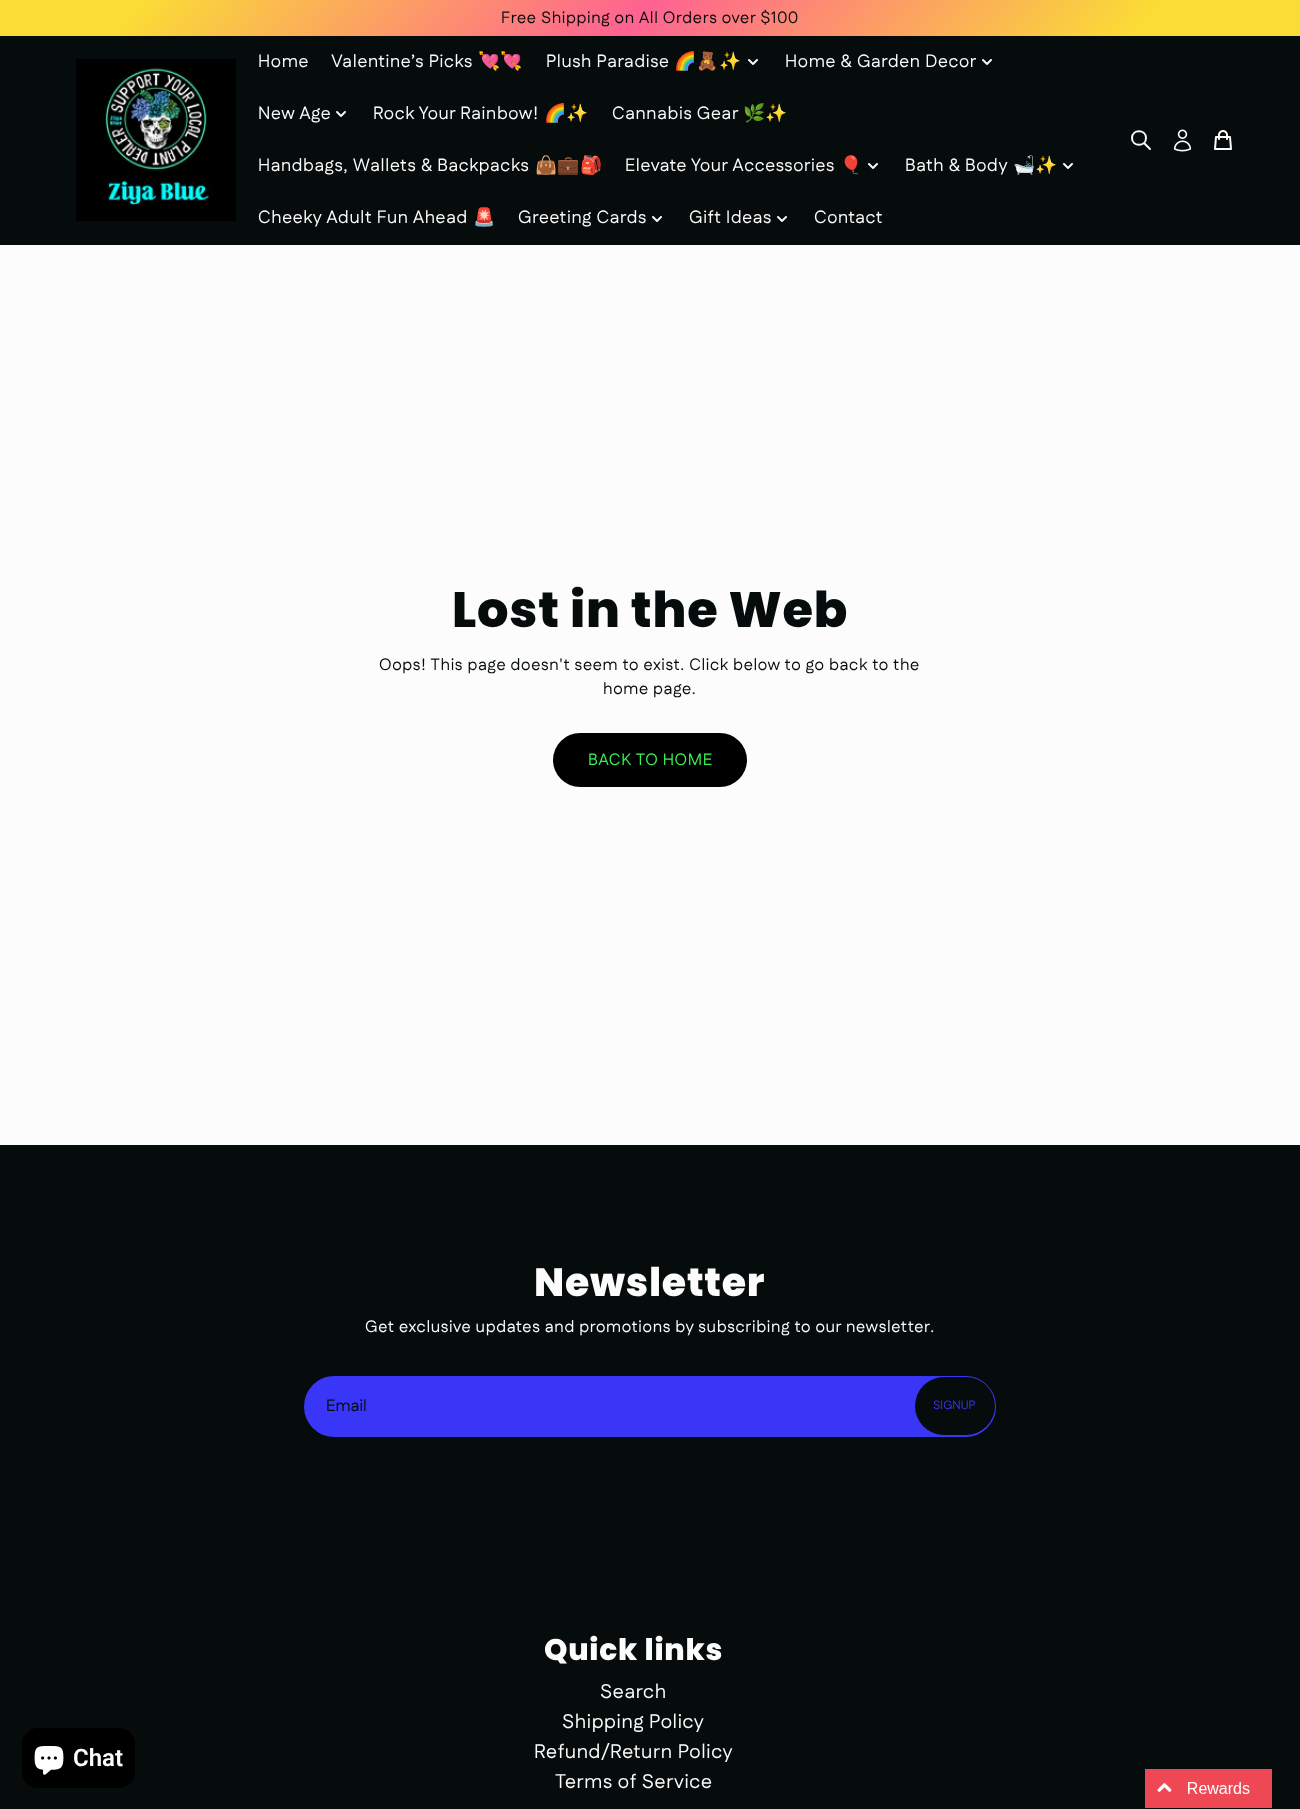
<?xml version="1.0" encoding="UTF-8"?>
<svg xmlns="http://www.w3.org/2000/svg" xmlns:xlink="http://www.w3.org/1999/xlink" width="1300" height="1809">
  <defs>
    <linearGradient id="g1" gradientUnits="userSpaceOnUse" x1="293" y1="-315" x2="1007" y2="351"><stop offset="0.11" stop-color="#fadc36" /><stop offset="0.49" stop-color="#fe6292" /><stop offset="0.87" stop-color="#fadc36" /></linearGradient>
    <clipPath id="clip1"><rect x="304" y="1376" width="692" height="61" rx="30.5" /></clipPath>
  </defs>
  <rect width="100%" height="100%" fill="#060b0b" />
  <rect width="1300" height="36" fill="url(#g1)" />
  <image x="76" y="59" width="160" height="162" xlink:href="image1.png" />
  <image x="748" y="59" width="10" height="6" xlink:href="image2.png" />
  <image x="982" y="59" width="10" height="6" xlink:href="image2.png" />
  <image x="336" y="111" width="10" height="6" xlink:href="image2.png" />
  <image x="868" y="163" width="10" height="6" xlink:href="image2.png" />
  <image x="1063" y="163" width="10" height="6" xlink:href="image2.png" />
  <image x="652" y="216" width="10" height="6" xlink:href="image2.png" />
  <image x="777" y="216" width="10" height="6" xlink:href="image2.png" />
  <path d="M 1150 149 l -6 -6 m 2 -5 c 0 9 -14 9 -14 0 c 0 -9 14 -9 14 0 z" fill="none" stroke="#fcfcfc" stroke-width="2" stroke-linecap="round" stroke-linejoin="round" />
  <image x="1173" y="129" width="19" height="23" xlink:href="image3.png" />
  <image x="1214" y="130" width="18" height="20" xlink:href="image4.png" />
  <rect y="245" width="1300" height="900" fill="#fcfcfc" />
  <rect x="553" y="733" width="194" height="54" rx="27" fill="#000000" />
  <rect x="302" y="1374" width="696" height="65" rx="32.5" fill="#3a36f8" stroke="#060b0b" stroke-width="4" />
  <g clip-path="url(#clip1)">
    <rect x="310" y="1377" width="634" height="58" fill="#3a36f8" />
  </g>
  <rect x="915" y="1377" width="80" height="58" rx="29" fill="#060b0b" />
  <rect x="22" y="1728" width="113" height="60" rx="16" fill="#000000" />
  <image x="34" y="1746" width="30" height="29" xlink:href="image5.png" />
  <image x="1145" y="1769" width="127" height="39" xlink:href="image6.png" />
  <text x="501" y="23" style="font-family: Fustat; font-size: 16.5px; letter-spacing: 0.65px; fill: #060b0b">Free Shipping on All Orders over $100</text>
  <text x="258" y="67" style="font-family: Fustat; font-size: 17.8px; letter-spacing: 0.65px; fill: #fcfcfc">Home</text>
  <text x="331" y="67" style="font-family: Fustat; font-size: 17.8px; letter-spacing: 0.65px; fill: #fcfcfc">Valentine’s Picks</text>
  <text x="478" y="67" style="font-family: Noto Color Emoji; font-size: 17.8px; letter-spacing: 0.65px; fill: #fcfcfc">💘💘</text>
  <text x="546" y="67" style="font-family: Fustat; font-size: 17.8px; letter-spacing: 0.65px; fill: #fcfcfc">Plush Paradise</text>
  <text x="674" y="67" style="font-family: Noto Color Emoji; font-size: 17.8px; letter-spacing: 0.65px; fill: #fcfcfc">🌈🧸✨</text>
  <text x="785" y="67" style="font-family: Fustat; font-size: 17.8px; letter-spacing: 0.65px; fill: #fcfcfc">Home &amp; Garden Decor</text>
  <text x="258" y="119" style="font-family: Fustat; font-size: 17.8px; letter-spacing: 0.65px; fill: #fcfcfc">New Age</text>
  <text x="373" y="119" style="font-family: Fustat; font-size: 17.8px; letter-spacing: 0.65px; fill: #fcfcfc">Rock Your Rainbow!</text>
  <text x="544" y="119" style="font-family: Noto Color Emoji; font-size: 17.8px; letter-spacing: 0.65px; fill: #fcfcfc">🌈✨</text>
  <text x="612" y="119" style="font-family: Fustat; font-size: 17.8px; letter-spacing: 0.65px; fill: #fcfcfc">Cannabis Gear</text>
  <text x="743" y="119" style="font-family: Noto Color Emoji; font-size: 17.8px; letter-spacing: 0.65px; fill: #fcfcfc">🌿✨</text>
  <text x="258" y="171" style="font-family: Fustat; font-size: 17.8px; letter-spacing: 0.65px; fill: #fcfcfc">Handbags, Wallets &amp; Backpacks</text>
  <text x="535" y="171" style="font-family: Noto Color Emoji; font-size: 17.8px; letter-spacing: 0.65px; fill: #fcfcfc">👜💼🎒</text>
  <text x="625" y="171" style="font-family: Fustat; font-size: 17.8px; letter-spacing: 0.65px; fill: #fcfcfc">Elevate Your Accessories</text>
  <text x="840" y="171" style="font-family: Noto Color Emoji; font-size: 17.8px; letter-spacing: 0.65px; fill: #fcfcfc">🎈</text>
  <text x="905" y="171" style="font-family: Fustat; font-size: 17.8px; letter-spacing: 0.65px; fill: #fcfcfc">Bath &amp; Body</text>
  <text x="1013" y="171" style="font-family: Noto Color Emoji; font-size: 17.8px; letter-spacing: 0.65px; fill: #fcfcfc">🛁✨</text>
  <text x="258" y="223" style="font-family: Fustat; font-size: 17.8px; letter-spacing: 0.65px; fill: #fcfcfc">Cheeky Adult Fun Ahead</text>
  <text x="473" y="223" style="font-family: Noto Color Emoji; font-size: 17.8px; letter-spacing: 0.65px; fill: #fcfcfc">🚨</text>
  <text x="518" y="223" style="font-family: Fustat; font-size: 17.8px; letter-spacing: 0.65px; fill: #fcfcfc">Greeting Cards</text>
  <text x="689" y="223" style="font-family: Fustat; font-size: 17.8px; letter-spacing: 0.65px; fill: #fcfcfc">Gift Ideas</text>
  <text x="814" y="223" style="font-family: Fustat; font-size: 17.8px; letter-spacing: 0.65px; fill: #fcfcfc">Contact</text>
  <text x="452" y="627" style="font-family: Poppins; font-size: 49.5px; font-weight: 800; letter-spacing: 0.75px; fill: #060b0b">Lost in the Web</text>
  <text x="379" y="670" style="font-family: Fustat; font-size: 16.5px; letter-spacing: 0.65px; fill: #060b0b">Oops! This page doesn't seem to exist. Click below to go back to the</text>
  <text x="603" y="694" style="font-family: Fustat; font-size: 16.5px; letter-spacing: 0.65px; fill: #060b0b">home page.</text>
  <text x="588" y="765" style="font-family: Fustat; font-size: 16.5px; letter-spacing: 0.65px; fill: #38f454">BACK TO HOME</text>
  <text x="534" y="1296" style="font-family: Poppins; font-size: 39.5px; font-weight: 800; letter-spacing: 0.75px; fill: #fcfcfc">Newsletter</text>
  <text x="365" y="1332" style="font-family: Fustat; font-size: 16.5px; letter-spacing: 0.65px; fill: #fcfcfc">Get exclusive updates and promotions by subscribing to our newsletter.</text>
  <text x="326" y="1411" style="font-family: Fustat; font-size: 16.5px; fill: #060b0b">Email</text>
  <text x="933" y="1409" style="font-family: Fustat; font-size: 12px; fill: #3a36f8">SIGNUP</text>
  <text x="73" y="1766" style="font-family: Roboto; font-size: 24px; font-weight: 600; fill: #fcfcfc">Chat</text>
  <text x="544" y="1660" style="font-family: Poppins; font-size: 29.75px; font-weight: 800; letter-spacing: 0.75px; fill: #fcfcfc">Quick links</text>
  <text x="600" y="1698" style="font-family: Fustat; font-size: 19.75px; letter-spacing: 0.65px; fill: #fcfcfc">Search</text>
  <text x="562" y="1728" style="font-family: Fustat; font-size: 19.75px; letter-spacing: 0.65px; fill: #fcfcfc">Shipping Policy</text>
  <text x="534" y="1758" style="font-family: Fustat; font-size: 19.75px; letter-spacing: 0.65px; fill: #fcfcfc">Refund/Return Policy</text>
  <text x="555" y="1788" style="font-family: Fustat; font-size: 19.75px; letter-spacing: 0.65px; fill: #fcfcfc">Terms of Service</text>
</svg>
